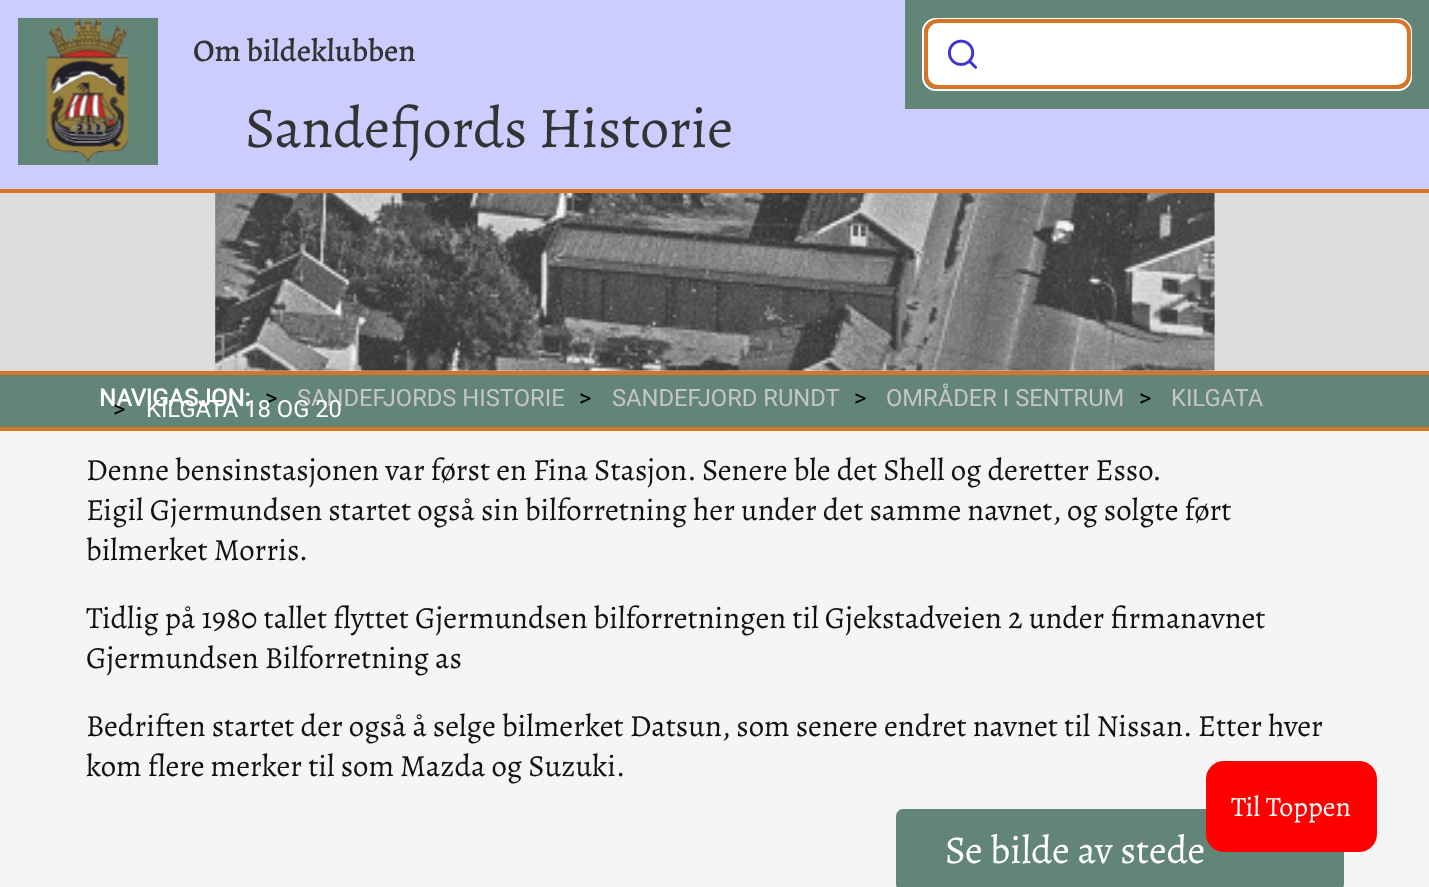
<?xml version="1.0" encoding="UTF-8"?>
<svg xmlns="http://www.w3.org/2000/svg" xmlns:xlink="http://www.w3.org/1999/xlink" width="1429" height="887">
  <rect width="100%" height="100%" fill="#f5f5f5" />
  <rect width="1429" height="189" fill="#ccccff" />
  <rect y="189" width="1429" height="4" fill="#d77525" />
  <rect x="18" y="18" width="140" height="147" fill="#628577" />
  <image x="46" y="17" width="83" height="147" xlink:href="image1.png" />
  <rect x="905" width="524" height="109" fill="#628577" />
  <rect x="923" y="19" width="488" height="71" rx="13" fill="none" stroke="#ffffff" stroke-width="2" />
  <rect x="926" y="21" width="483" height="66" rx="12" fill="#ffffff" stroke="#d77525" stroke-width="4" />
  <image x="947" y="39" width="31" height="30" xlink:href="image2.png" />
  <rect y="193" width="1429" height="178" fill="#dddddd" />
  <image x="215" y="193" width="1000" height="178" xlink:href="image3.png" />
  <rect y="375" width="1429" height="52" fill="#628577" />
  <rect y="371" width="1429" height="4" fill="#d77525" />
  <rect y="427" width="1429" height="4" fill="#d77525" />
  <rect x="896" y="809" width="448" height="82" rx="7" fill="#638577" />
  <rect x="1206" y="761" width="171" height="91" rx="18" fill="#ff0000" />
  <text x="193" y="61" style="font-family: Alegreya; font-size: 31.5px; font-weight: 500; fill: #333333">Om bildeklubben</text>
  <text x="245" y="147" style="font-family: Alegreya; font-size: 57.75px; fill: #333333">Sandefjords Historie</text>
  <text x="99" y="406" style="font-family: Roboto; font-size: 23.75px; font-weight: bold; fill: #ffffff">NAVIGASJON:</text>
  <text x="265" y="406" style="font-family: Roboto; font-size: 23.75px; fill: #000000">&gt;</text>
  <text x="297" y="406" style="font-family: Roboto; font-size: 23.75px; fill: #c5c5c5">SANDEFJORDS HISTORIE</text>
  <text x="579" y="406" style="font-family: Roboto; font-size: 23.75px; fill: #000000">&gt;</text>
  <text x="612" y="406" style="font-family: Roboto; font-size: 23.75px; fill: #c5c5c5">SANDEFJORD RUNDT</text>
  <text x="854" y="406" style="font-family: Roboto; font-size: 23.75px; fill: #000000">&gt;</text>
  <text x="886" y="406" style="font-family: Roboto; font-size: 23.75px; fill: #c5c5c5">OMRÅDER I SENTRUM</text>
  <text x="1139" y="406" style="font-family: Roboto; font-size: 23.75px; fill: #000000">&gt;</text>
  <text x="1171" y="406" style="font-family: Roboto; font-size: 23.75px; fill: #c5c5c5">KILGATA</text>
  <text x="113" y="417" style="font-family: Roboto; font-size: 23.75px; fill: #000000">&gt;</text>
  <text x="146" y="417" style="font-family: Roboto; font-size: 23.75px; fill: #ffffff">KILGATA 18 OG 20</text>
  <text x="86" y="480" style="font-family: Alegreya; font-size: 30.8px; fill: #111111">Denne bensinstasjonen var først en Fina Stasjon. Senere ble det Shell og deretter Esso.</text>
  <text x="86" y="520" style="font-family: Alegreya; font-size: 30.8px; fill: #111111">Eigil Gjermundsen startet også sin bilforretning her under det samme navnet, og solgte ført</text>
  <text x="86" y="560" style="font-family: Alegreya; font-size: 30.8px; fill: #111111">bilmerket Morris.</text>
  <text x="86" y="628" style="font-family: Alegreya; font-size: 30.8px; fill: #111111">Tidlig på 1980 tallet flyttet Gjermundsen bilforretningen til Gjekstadveien 2 under firmanavnet</text>
  <text x="86" y="668" style="font-family: Alegreya; font-size: 30.8px; fill: #111111">Gjermundsen Bilforretning as</text>
  <text x="86" y="736" style="font-family: Alegreya; font-size: 30.8px; fill: #111111">Bedriften startet der også å selge bilmerket Datsun, som senere endret navnet til Nissan. Etter hver</text>
  <text x="86" y="776" style="font-family: Alegreya; font-size: 30.8px; fill: #111111">kom flere merker til som Mazda og Suzuki.</text>
  <text x="945" y="863" style="font-family: Alegreya; font-size: 39.25px; fill: #ffffff">Se bilde av stede</text>
  <text x="1231" y="816" style="font-family: Alegreya; font-size: 28px; fill: #ffffff">Til Toppen</text>
</svg>
